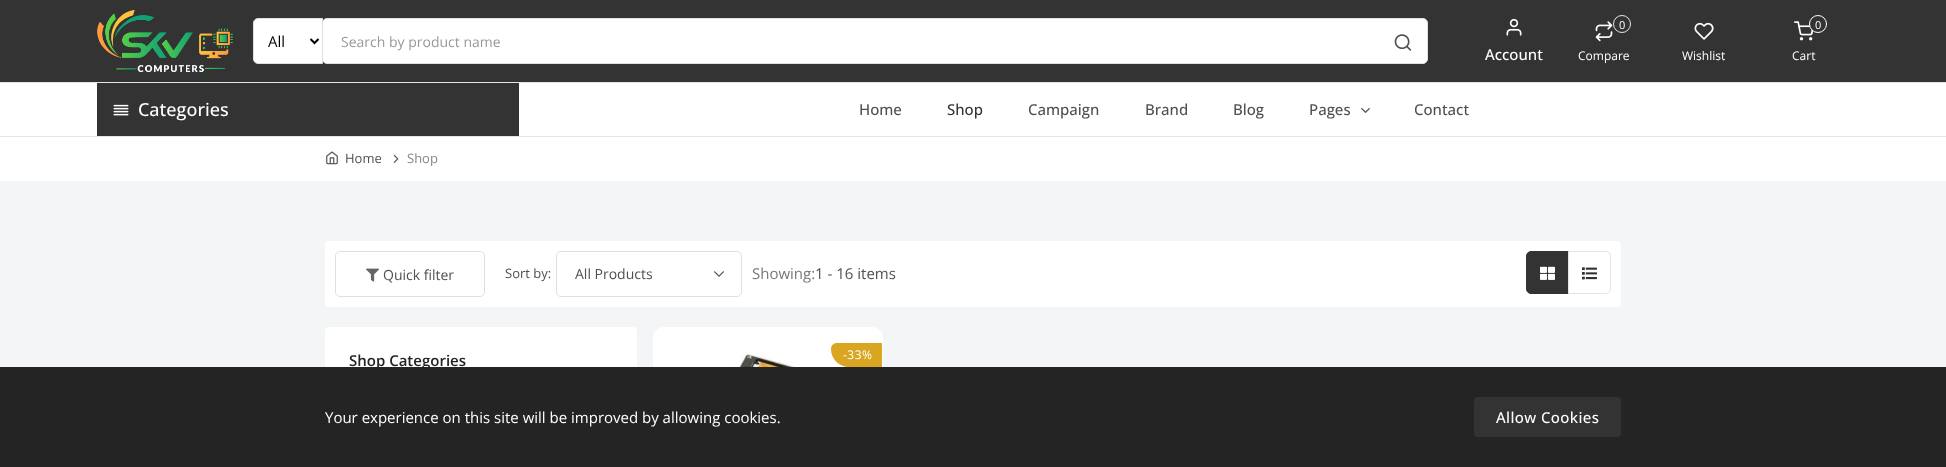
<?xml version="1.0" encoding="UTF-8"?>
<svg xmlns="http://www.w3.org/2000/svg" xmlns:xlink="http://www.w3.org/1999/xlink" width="1946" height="467">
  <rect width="100%" height="100%" fill="#f3f5f6" />
  <rect width="1946" height="82" fill="#333333" />
  <rect y="82" width="1946" height="1" fill="#e5e5e5" />
  <image x="97" y="10" width="136" height="62" xlink:href="image1.png" />
  <path d="M 258 18.5 h 64.5 v 45 h -64.5 c -2.5 0 -4.5 -2 -4.5 -4.5 v -36 c 0 -2.5 2 -4.5 4.5 -4.5 z" fill="#ffffff" stroke="#e0e0e0" />
  <path d="M 310.5 39 l 4 4 l 4 -4" fill="none" stroke="#000000" stroke-width="2" />
  <rect x="322.5" y="18.5" width="1105" height="45" rx="4.5" fill="#ffffff" stroke="#e0e0e0" />
  <image x="1394" y="34" width="18" height="17" xlink:href="image2.png" />
  <image x="1506" y="18" width="16" height="18" xlink:href="image3.png" />
  <image x="1595" y="21" width="18" height="21" xlink:href="image4.png" />
  <circle cx="1622" cy="24" r="8.5" fill="none" stroke="#e5e5e5" />
  <image x="1694" y="22" width="20" height="18" xlink:href="image5.png" />
  <image x="1794" y="21" width="20" height="20" xlink:href="image6.png" />
  <circle cx="1818" cy="24" r="8.5" fill="#333333" stroke="#ffffff" />
  <rect y="83" width="1946" height="53" fill="#ffffff" />
  <rect x="97" y="83" width="422" height="53" fill="#333333" />
  <image x="113" y="104" width="16" height="12" xlink:href="image7.png" />
  <image x="1361" y="108" width="9" height="5" xlink:href="image8.png" />
  <rect y="137" width="1946" height="44" fill="#ffffff" />
  <rect y="136" width="1946" height="1" fill="#e5e5e5" />
  <image x="326" y="151" width="12" height="14" xlink:href="image9.png" />
  <image x="393" y="154" width="6" height="9" xlink:href="image10.png" />
  <rect x="325" y="241" width="1296" height="66" rx="4" fill="#ffffff" />
  <rect x="335.5" y="251.5" width="149" height="45" rx="4.5" fill="none" stroke="#e0e0e0" />
  <image x="366" y="268" width="13" height="14" xlink:href="image11.png" />
  <image x="714" y="271" width="10" height="6" xlink:href="image12.png" />
  <rect x="556.5" y="251.5" width="185" height="45" rx="4.5" fill="none" stroke="#e0e0e0" />
  <path d="M 1531 251.5 h 37.5 v 42 h -37.5 c -2.5 0 -4.5 -2 -4.5 -4.5 v -33 c 0 -2.5 2 -4.5 4.5 -4.5 z" fill="#333333" stroke="#333333" />
  <image x="1540" y="266" width="15" height="14" xlink:href="image13.png" />
  <path d="M 1568.5 251.5 h 37.5 c 2.5 0 4.5 2 4.5 4.5 v 33 c 0 2.5 -2 4.5 -4.5 4.5 h -37.5 z" fill="#ffffff" stroke="#e5e5e5" />
  <image x="1582" y="267" width="15" height="13" xlink:href="image14.png" />
  <rect x="325" y="327" width="312" height="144" rx="4" fill="#ffffff" />
  <rect x="653.5" y="327.5" width="229" height="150" rx="9.5" fill="#ffffff" stroke="#ffffff" />
  <image x="689" y="352" width="160" height="15" xlink:href="image15.png" />
  <path d="M 837 343 h 45 v 24 h -33 c -10 0 -18 -8 -18 -18 c 0 -3.5 2.5 -6 6 -6 z" fill="#daa520" />
  <text x="268" y="47" style="font-family: Open Sans; font-size: 15px; fill: #000000">All</text>
  <text x="341" y="47" style="font-family: Open Sans; font-size: 14px; fill: #999999">Search by product name</text>
  <text x="1485" y="60" style="font-family: Open Sans; font-size: 15px; font-weight: 500; fill: #ffffff">Account</text>
  <text x="1619" y="29" style="font-family: Open Sans; font-size: 11px; fill: #ffffff">0</text>
  <text x="1578" y="60" style="font-family: Open Sans; font-size: 12px; fill: #ffffff">Compare</text>
  <text x="1682" y="60" style="font-family: Open Sans; font-size: 12px; fill: #ffffff">Wishlist</text>
  <text x="1815" y="29" style="font-family: Open Sans; font-size: 11px; fill: #ffffff">0</text>
  <text x="1792" y="60" style="font-family: Open Sans; font-size: 12px; fill: #ffffff">Cart</text>
  <text x="138" y="116" style="font-family: Open Sans; font-size: 18px; font-weight: 500; fill: #ffffff">Categories</text>
  <text x="859" y="115" style="font-family: Open Sans; font-size: 15px; font-weight: 500; fill: #505050">Home</text>
  <text x="947" y="115" style="font-family: Open Sans; font-size: 15px; font-weight: 500; fill: #333333">Shop</text>
  <text x="1028" y="115" style="font-family: Open Sans; font-size: 15px; font-weight: 500; fill: #505050">Campaign</text>
  <text x="1145" y="115" style="font-family: Open Sans; font-size: 15px; font-weight: 500; fill: #505050">Brand</text>
  <text x="1233" y="115" style="font-family: Open Sans; font-size: 15px; font-weight: 500; fill: #505050">Blog</text>
  <text x="1309" y="115" style="font-family: Open Sans; font-size: 15px; font-weight: 500; fill: #505050">Pages</text>
  <text x="1414" y="115" style="font-family: Open Sans; font-size: 15px; font-weight: 500; fill: #505050">Contact</text>
  <text x="345" y="163" style="font-family: Open Sans; font-size: 13px; fill: #505050">Home</text>
  <text x="407" y="163" style="font-family: Open Sans; font-size: 13px; fill: #888888">Shop</text>
  <text x="383" y="280" style="font-family: Open Sans; font-size: 14px; fill: #505050">Quick filter</text>
  <text x="505" y="278" style="font-family: Open Sans; font-size: 13px; fill: #505050">Sort by:</text>
  <text x="575" y="279" style="font-family: Open Sans; font-size: 14px; fill: #505050">All Products</text>
  <text x="752" y="279" style="font-family: Open Sans; font-size: 15px; fill: #777777">Showing:</text>
  <text x="815" y="279" style="font-family: Open Sans; font-size: 15px; fill: #505050">1 - 16 items</text>
  <text x="349" y="366" style="font-family: Open Sans; font-size: 15px; font-weight: 600; fill: #232323">Shop Categories</text>
  <text x="843" y="359" style="font-family: Open Sans; font-size: 12px; letter-spacing: 0.5px; fill: #ffffff">-33%</text>
  <rect y="367" width="1946" height="100" fill="#242424" />
  <text x="325" y="423" style="font-family: Open Sans; font-size: 15px; fill: #ffffff">Your experience on this site will be improved by allowing cookies.</text>
  <rect x="1474" y="397" width="147" height="40" rx="4" fill="#333333" />
  <text x="1496" y="423" style="font-family: Open Sans; font-size: 15px; font-weight: 500; letter-spacing: 0.4px; fill: #ffffff">Allow Cookies</text>
</svg>
